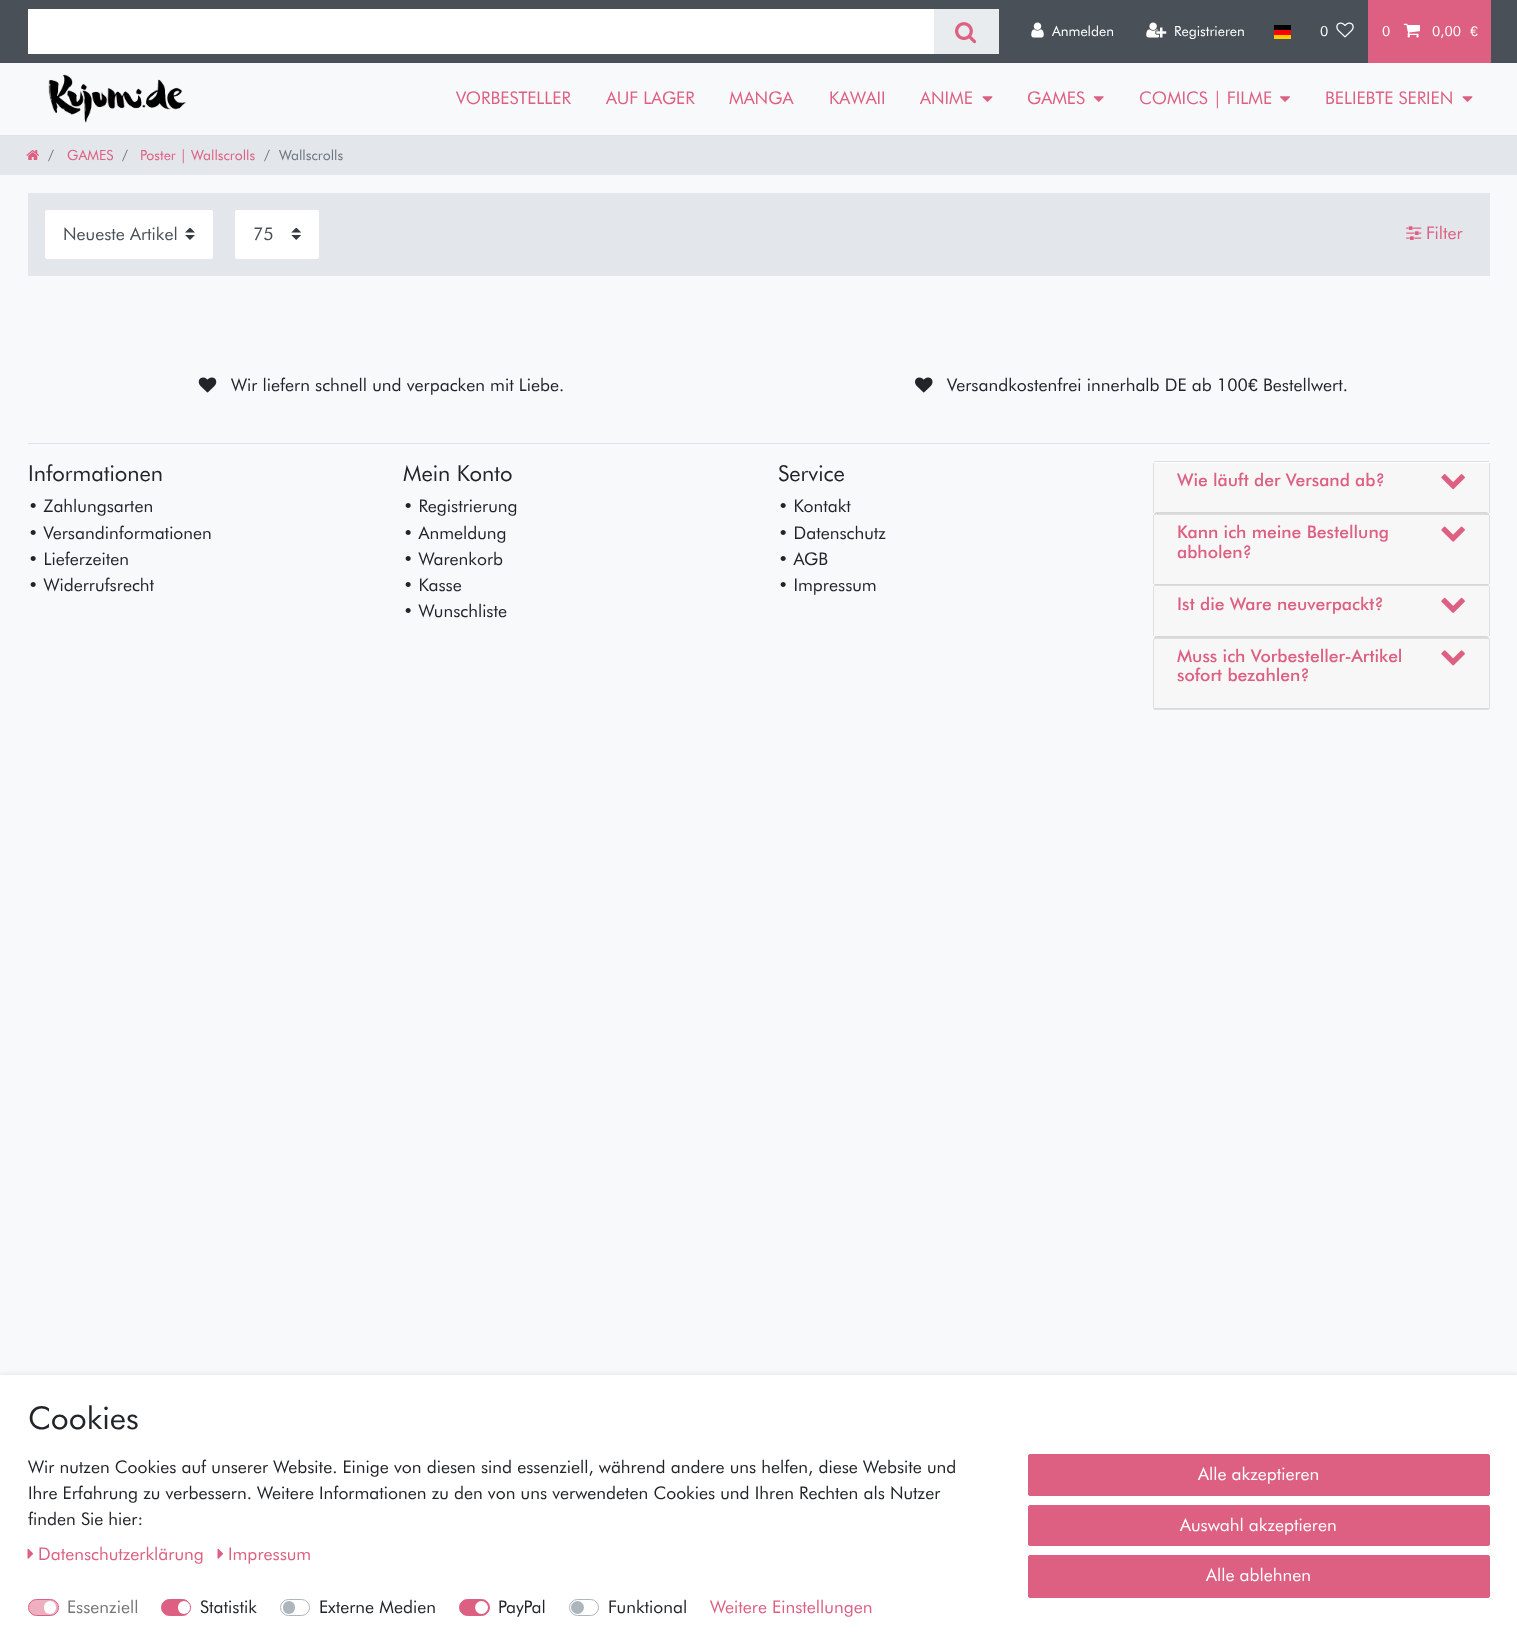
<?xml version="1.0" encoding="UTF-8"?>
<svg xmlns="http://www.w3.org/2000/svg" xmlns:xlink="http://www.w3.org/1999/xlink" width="1517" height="1646">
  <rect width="100%" height="100%" fill="#f8f9fa" />
  <rect width="1517" height="63" fill="#495057" />
  <rect x="28" y="9" width="906" height="45" fill="#ffffff" />
  <rect x="934" y="9" width="65" height="45" fill="#e9ecef" />
  <image x="955" y="22" width="22" height="22" xlink:href="image1.png" />
  <image x="1031" y="22" width="13" height="16" xlink:href="image2.png" />
  <image x="1146" y="22" width="21" height="16" xlink:href="image3.png" />
  <rect x="1274" y="35" width="17" height="4" fill="#ffcc00" />
  <rect x="1274" y="25" width="17" height="5" fill="#000000" />
  <rect x="1274" y="30" width="17" height="5" fill="#ff0000" />
  <image x="1336" y="22" width="18" height="16" xlink:href="image4.png" />
  <rect x="1368" width="123" height="63" fill="#dd6082" />
  <image x="1403" y="23" width="17" height="15" xlink:href="image5.png" />
  <rect y="135" width="1517" height="1" fill="#dee2e6" />
  <image x="48" y="74" width="139" height="49" xlink:href="image6.png" />
  <image x="982" y="96" width="11" height="6" xlink:href="image7.png" />
  <image x="1093" y="96" width="11" height="6" xlink:href="image8.png" />
  <image x="1280" y="96" width="10" height="6" xlink:href="image9.png" />
  <image x="1462" y="96" width="11" height="6" xlink:href="image7.png" />
  <rect y="136" width="1517" height="39" fill="#e3e7eb" />
  <image x="26" y="150" width="13" height="10" xlink:href="image10.png" />
  <rect x="28" y="193" width="1462" height="83" fill="#e3e7eb" />
  <rect x="45" y="210" width="168" height="49" rx="2" fill="#ffffff" />
  <image x="185" y="228" width="10" height="12" xlink:href="image11.png" />
  <rect x="235" y="210" width="84" height="49" rx="2" fill="#ffffff" />
  <image x="291" y="228" width="10" height="12" xlink:href="image12.png" />
  <image x="1406" y="226" width="16" height="14" xlink:href="image13.png" />
  <image x="198" y="377" width="19" height="16" xlink:href="image14.png" />
  <image x="915" y="377" width="18" height="16" xlink:href="image15.png" />
  <rect x="28" y="443" width="1462" height="1" fill="#dee2e6" />
  <rect x="1153" y="461" width="337" height="53" rx="2" fill="#ffffff" />
  <rect x="1154" y="461" width="335" height="1" fill="#dfdfdf" />
  <rect x="1489" y="463" width="1" height="50" fill="#dfdfdf" />
  <rect x="1153" y="463" width="1" height="50" fill="#dfdfdf" />
  <path d="M 1154.5 463 h 334 c 0.5 0 0.5 0 0.5 0.5 v 50.5 h -335 v -50.5 c 0 -0.5 0 -0.5 0.5 -0.5 z" fill="#f7f7f7" />
  <path d="M 1489 514 h -335 l 2 -2 h 331 z" fill="#d8d8d8" />
  <image x="1441" y="474" width="24" height="16" xlink:href="image16.png" />
  <rect x="1154" y="514" width="335" height="1" fill="#dfdfdf" />
  <rect x="1489" y="515" width="1" height="69" fill="#dfdfdf" />
  <rect x="1153" y="515" width="1" height="69" fill="#dfdfdf" />
  <path d="M 1154.5 515 h 334 c 0.5 0 0.5 0 0.5 0.5 v 69.5 h -335 v -69.5 c 0 -0.5 0 -0.5 0.5 -0.5 z" fill="#f7f7f7" />
  <path d="M 1489 585 l -1 -1 h -333 l -1 1 z" fill="#d8d8d8" />
  <image x="1441" y="526" width="24" height="16" xlink:href="image17.png" />
  <rect x="1153" y="585" width="337" height="53" rx="2" fill="#ffffff" />
  <rect x="1154" y="585" width="335" height="1" fill="#dfdfdf" />
  <rect x="1489" y="586" width="1" height="50" fill="#dfdfdf" />
  <rect x="1153" y="586" width="1" height="50" fill="#dfdfdf" />
  <path d="M 1154.5 586 h 334 c 0.5 0 0.5 0 0.5 0.5 v 51.5 h -335 v -51.5 c 0 -0.5 0 -0.5 0.5 -0.5 z" fill="#f7f7f7" />
  <path d="M 1489 638 h -335 l 1 -2 h 332 z" fill="#d8d8d8" />
  <image x="1441" y="597" width="24" height="16" xlink:href="image18.png" />
  <rect x="1153.5" y="638.5" width="336" height="71" rx="1.5" fill="#ffffff" stroke="#dfdfdf" />
  <rect x="1154" y="639" width="335" height="70" fill="#000000" fill-opacity="0.03" />
  <path d="M 1489 709 h -335 l 1 -1 h 333 z" fill="#000000" fill-opacity="0.12" />
  <image x="1441" y="650" width="24" height="16" xlink:href="image19.png" />
  <rect y="1376" width="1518" height="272" fill="#000000" fill-opacity="0.15" filter="blur(3px)" />
  <rect y="1375" width="1517" height="271" fill="#ffffff" />
  <image x="27" y="1548" width="7" height="11" xlink:href="image20.png" />
  <image x="217" y="1548" width="7" height="11" xlink:href="image20.png" />
  <rect x="28.5" y="1599.5" width="30" height="16" rx="8" fill="#eeb0c1" stroke="#dd6082" />
  <rect x="44" y="1601" width="12" height="13" rx="6" fill="#ffffff" />
  <rect x="161.5" y="1599.5" width="29" height="16" rx="8" fill="#dd6082" stroke="#dd6082" />
  <rect x="178" y="1601" width="12" height="13" rx="6" fill="#ffffff" />
  <rect x="280.5" y="1599.5" width="29" height="16" rx="8" fill="none" stroke="#adb5bd" />
  <rect x="283" y="1601" width="12" height="13" rx="6" fill="#adb5bd" />
  <rect x="459.5" y="1599.5" width="30" height="16" rx="8" fill="#dd6082" stroke="#dd6082" />
  <circle cx="481.5" cy="1607.5" r="6.5" fill="#ffffff" />
  <rect x="569.5" y="1599.5" width="29" height="16" rx="8" fill="none" stroke="#adb5bd" />
  <circle cx="577.5" cy="1607.5" r="6.5" fill="#adb5bd" />
  <rect x="1028.5" y="1454.5" width="461" height="41" rx="1.5" fill="#dd6082" stroke="#dd6082" />
  <rect x="1028.5" y="1505.5" width="461" height="40" rx="1.5" fill="#dd6082" stroke="#dd6082" />
  <rect x="1028.5" y="1555.5" width="461" height="42" rx="1.5" fill="#dd6082" stroke="#dd6082" />
  <text x="1052" y="36" style="font-family: Futura; font-size: 14px; fill: #ffffff">Anmelden</text>
  <text x="1174" y="36" style="font-family: Futura; font-size: 14px; fill: #ffffff">Registrieren</text>
  <text x="1320" y="36" style="font-family: Futura; font-size: 14px; fill: #ffffff">0</text>
  <text x="1382" y="36" style="font-family: Futura; font-size: 14px; fill: #ffffff">0</text>
  <text x="1432" y="36" style="font-family: Futura; font-size: 14px; fill: #ffffff">0,00</text>
  <text x="1470" y="36" style="font-family: Liberation Sans; font-size: 14px; fill: #ffffff">€</text>
  <text x="456" y="104" style="font-family: Futura; font-size: 17.5px; fill: #dd6082">VORBESTELLER</text>
  <text x="606" y="104" style="font-family: Futura; font-size: 17.5px; fill: #dd6082">AUF LAGER</text>
  <text x="729" y="104" style="font-family: Futura; font-size: 17.5px; fill: #dd6082">MANGA</text>
  <text x="829" y="104" style="font-family: Futura; font-size: 17.5px; fill: #dd6082">KAWAII</text>
  <text x="920" y="104" style="font-family: Futura; font-size: 17.5px; fill: #dd6082">ANIME</text>
  <text x="1027" y="104" style="font-family: Futura; font-size: 17.5px; fill: #dd6082">GAMES</text>
  <text x="1139" y="104" style="font-family: Futura; font-size: 17.5px; fill: #dd6082">COMICS | FILME</text>
  <text x="1325" y="104" style="font-family: Futura; font-size: 17.5px; fill: #dd6082">BELIEBTE SERIEN</text>
  <text x="48" y="160" style="font-family: Futura; font-size: 14px; fill: #6c757d">/</text>
  <text x="67" y="160" style="font-family: Futura; font-size: 14px; fill: #dd6082">GAMES</text>
  <text x="122" y="160" style="font-family: Futura; font-size: 14px; fill: #6c757d">/</text>
  <text x="140" y="160" style="font-family: Futura; font-size: 14px; fill: #dd6082">Poster | Wallscrolls</text>
  <text x="264" y="160" style="font-family: Futura; font-size: 14px; fill: #6c757d">/</text>
  <text x="279" y="160" style="font-family: Futura; font-size: 14px; fill: #6c757d">Wallscrolls</text>
  <text x="63" y="240" style="font-family: Futura; font-size: 17.5px; fill: #495057">Neueste Artikel</text>
  <text x="253" y="240" style="font-family: Futura; font-size: 17.5px; fill: #495057">75</text>
  <text x="1426" y="239" style="font-family: Futura; font-size: 17.5px; fill: #dd6082">Filter</text>
  <text x="231" y="391" style="font-family: Futura; font-size: 17.5px; fill: #212529">Wir liefern schnell und verpacken mit Liebe.</text>
  <text x="947" y="391" style="font-family: Futura; font-size: 17.5px; fill: #212529">Versandkostenfrei innerhalb DE ab 100</text>
  <text x="1248" y="391" style="font-family: Liberation Sans; font-size: 17.5px; fill: #212529">€</text>
  <text x="1263" y="391" style="font-family: Futura; font-size: 17.5px; fill: #212529">Bestellwert.</text>
  <text x="28" y="481" style="font-family: Futura; font-size: 22px; fill: #212529">Informationen</text>
  <text x="28" y="512" style="font-family: Futura; font-size: 17.5px; fill: #212529">• Zahlungsarten</text>
  <text x="28" y="539" style="font-family: Futura; font-size: 17.5px; fill: #212529">• Versandinformationen</text>
  <text x="28" y="565" style="font-family: Futura; font-size: 17.5px; fill: #212529">• Lieferzeiten</text>
  <text x="28" y="591" style="font-family: Futura; font-size: 17.5px; fill: #212529">• Widerrufsrecht</text>
  <text x="403" y="481" style="font-family: Futura; font-size: 22px; fill: #212529">Mein Konto</text>
  <text x="403" y="512" style="font-family: Futura; font-size: 17.5px; fill: #212529">• Registrierung</text>
  <text x="403" y="539" style="font-family: Futura; font-size: 17.5px; fill: #212529">• Anmeldung</text>
  <text x="403" y="565" style="font-family: Futura; font-size: 17.5px; fill: #212529">• Warenkorb</text>
  <text x="403" y="591" style="font-family: Futura; font-size: 17.5px; fill: #212529">• Kasse</text>
  <text x="403" y="617" style="font-family: Futura; font-size: 17.5px; fill: #212529">• Wunschliste</text>
  <text x="778" y="481" style="font-family: Futura; font-size: 22px; fill: #212529">Service</text>
  <text x="778" y="512" style="font-family: Futura; font-size: 17.5px; fill: #212529">• Kontakt</text>
  <text x="778" y="539" style="font-family: Futura; font-size: 17.5px; fill: #212529">• Datenschutz</text>
  <text x="778" y="565" style="font-family: Futura; font-size: 17.5px; fill: #212529">• AGB</text>
  <text x="778" y="591" style="font-family: Futura; font-size: 17.5px; fill: #212529">• Impressum</text>
  <text x="1177" y="486" style="font-family: Futura; font-size: 17.5px; font-weight: 500; fill: #dd6082">Wie läuft der Versand ab?</text>
  <text x="1177" y="538" style="font-family: Futura; font-size: 17.5px; font-weight: 500; fill: #dd6082">Kann ich meine Bestellung</text>
  <text x="1177" y="558" style="font-family: Futura; font-size: 17.5px; font-weight: 500; fill: #dd6082">abholen?</text>
  <text x="1177" y="610" style="font-family: Futura; font-size: 17.5px; font-weight: 500; fill: #dd6082">Ist die Ware neuverpackt?</text>
  <text x="1177" y="662" style="font-family: Futura; font-size: 17.5px; font-weight: 500; fill: #dd6082">Muss ich Vorbesteller-Artikel</text>
  <text x="1177" y="681" style="font-family: Futura; font-size: 17.5px; font-weight: 500; fill: #dd6082">sofort bezahlen?</text>
  <text x="28" y="1429" style="font-family: Futura; font-size: 31.5px; fill: #212529">Cookies</text>
  <text x="28" y="1473" style="font-family: Futura; font-size: 17.5px; fill: #212529">Wir nutzen Cookies auf unserer Website. Einige von diesen sind essenziell, während andere uns helfen, diese Website und</text>
  <text x="28" y="1499" style="font-family: Futura; font-size: 17.5px; fill: #212529">Ihre Erfahrung zu verbessern. Weitere Informationen zu den von uns verwendeten Cookies und Ihren Rechten als Nutzer</text>
  <text x="28" y="1525" style="font-family: Futura; font-size: 17.5px; fill: #212529">finden Sie hier:</text>
  <text x="38" y="1560" style="font-family: Futura; font-size: 17.5px; fill: #dd6082">Datenschutzerklärung</text>
  <text x="228" y="1560" style="font-family: Futura; font-size: 17.5px; fill: #dd6082">Impressum</text>
  <text x="67" y="1613" style="font-family: Futura; font-size: 17.5px; fill: #767676">Essenziell</text>
  <text x="200" y="1613" style="font-family: Futura; font-size: 17.5px; fill: #212529">Statistik</text>
  <text x="319" y="1613" style="font-family: Futura; font-size: 17.5px; fill: #212529">Externe Medien</text>
  <text x="498" y="1613" style="font-family: Futura; font-size: 17.5px; fill: #212529">PayPal</text>
  <text x="608" y="1613" style="font-family: Futura; font-size: 17.5px; fill: #212529">Funktional</text>
  <text x="710" y="1613" style="font-family: Futura; font-size: 17.5px; fill: #dd6082">Weitere Einstellungen</text>
  <text x="1198" y="1480" style="font-family: Futura; font-size: 17.5px; fill: #ffffff">Alle akzeptieren</text>
  <text x="1180" y="1531" style="font-family: Futura; font-size: 17.5px; fill: #ffffff">Auswahl akzeptieren</text>
  <text x="1206" y="1581" style="font-family: Futura; font-size: 17.5px; fill: #ffffff">Alle ablehnen</text>
</svg>
